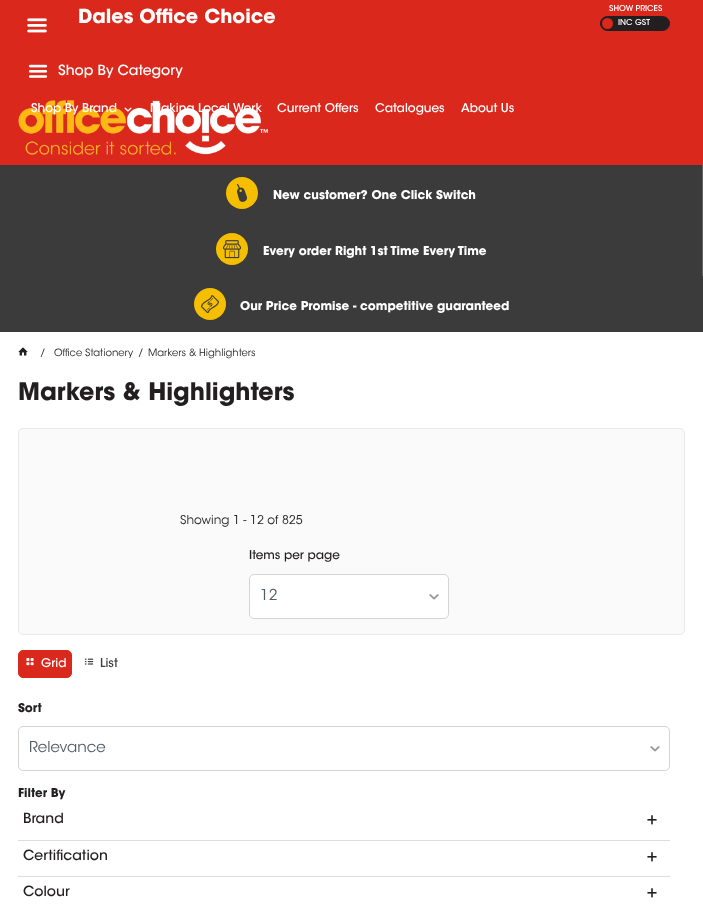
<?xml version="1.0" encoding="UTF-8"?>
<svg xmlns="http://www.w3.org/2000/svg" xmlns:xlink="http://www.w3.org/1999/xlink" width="703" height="910">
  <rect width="100%" height="100%" fill="#ffffff" />
  <rect width="703" height="165" fill="#da291c" />
  <image x="18" y="100" width="250" height="55" xlink:href="image1.png" />
  <rect x="600.5" y="16.5" width="69" height="14" rx="7" fill="#231f20" stroke="#231f20" />
  <circle cx="607.5" cy="23.5" r="5.5" fill="#da291c" />
  <image x="27" y="18" width="20" height="15" xlink:href="image2.png" />
  <image x="28" y="64" width="20" height="14" xlink:href="image3.png" />
  <image x="124" y="107" width="8" height="5" xlink:href="image4.png" />
  <rect y="165" width="703" height="167" fill="#3b3b3b" />
  <rect x="702" y="165" width="1" height="111" fill="#616161" />
  <circle cx="242" cy="193" r="16" fill="#f6be00" />
  <image x="237" y="183" width="10" height="19" xlink:href="image5.png" />
  <circle cx="232" cy="249" r="16" fill="#f6be00" />
  <image x="223" y="240" width="18" height="19" xlink:href="image6.png" />
  <circle cx="210" cy="304" r="16" fill="#f6be00" />
  <image x="201" y="295" width="18" height="19" xlink:href="image7.png" />
  <image x="18" y="347" width="10" height="9" xlink:href="image8.png" />
  <rect x="18.5" y="428.5" width="666" height="206" rx="4.5" fill="#fafafa" stroke="#ebe9e8" />
  <rect x="249.5" y="574.5" width="199" height="44" rx="4.5" fill="#ffffff" stroke="#d7d3d1" />
  <image x="429" y="594" width="10" height="6" xlink:href="image9.png" />
  <rect x="18.5" y="650.5" width="53" height="27" rx="4.5" fill="#da291c" stroke="#da291c" />
  <image x="26" y="658" width="8" height="8" xlink:href="image10.png" />
  <image x="84" y="658" width="10" height="7" xlink:href="image11.png" />
  <rect x="18.5" y="726.5" width="651" height="44" rx="4.5" fill="none" stroke="#d7d3d1" />
  <image x="650" y="746" width="10" height="6" xlink:href="image9.png" />
  <rect x="18" y="840" width="652" height="1" fill="#dddddd" />
  <image x="647" y="815" width="10" height="10" xlink:href="image12.png" />
  <rect x="18" y="876" width="652" height="1" fill="#dddddd" />
  <image x="647" y="852" width="10" height="10" xlink:href="image12.png" />
  <image x="647" y="888" width="10" height="10" xlink:href="image12.png" />
  <text x="78" y="23" style="font-family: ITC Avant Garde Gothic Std; font-size: 19.25px; font-weight: bold; fill: #ffffff">Dales Office Choice</text>
  <text x="609" y="11" style="font-family: ITC Avant Garde Gothic Std; font-size: 8px; font-weight: 500; fill: #ffffff">SHOW PRICES</text>
  <text x="618" y="25" style="font-family: ITC Avant Garde Gothic Std; font-size: 8px; font-weight: 500; fill: #ffffff">INC GST</text>
  <text x="58" y="75" style="font-family: ITC Avant Garde Gothic Std; font-size: 14px; font-weight: 500; fill: #ffffff">Shop By Category</text>
  <text x="31" y="112" style="font-family: ITC Avant Garde Gothic Std; font-size: 12px; font-weight: 500; fill: #ffffff">Shop By Brand</text>
  <text x="150" y="112" style="font-family: ITC Avant Garde Gothic Std; font-size: 12px; font-weight: 500; fill: #ffffff">Making Local Work</text>
  <text x="277" y="112" style="font-family: ITC Avant Garde Gothic Std; font-size: 12px; font-weight: 500; fill: #ffffff">Current Offers</text>
  <text x="375" y="112" style="font-family: ITC Avant Garde Gothic Std; font-size: 12px; font-weight: 500; fill: #ffffff">Catalogues</text>
  <text x="461" y="112" style="font-family: ITC Avant Garde Gothic Std; font-size: 12px; font-weight: 500; fill: #ffffff">About Us</text>
  <text x="273" y="199" style="font-family: ITC Avant Garde Gothic Std; font-size: 12px; font-weight: bold; fill: #ffffff">New customer? One Click Switch</text>
  <text x="263" y="255" style="font-family: ITC Avant Garde Gothic Std; font-size: 12px; font-weight: bold; fill: #ffffff">Every order Right 1st Time Every Time</text>
  <text x="240" y="310" style="font-family: ITC Avant Garde Gothic Std; font-size: 12px; font-weight: bold; fill: #ffffff">Our Price Promise - competitive guaranteed</text>
  <text x="40" y="356" style="font-family: ITC Avant Garde Gothic Std; font-size: 10px; font-weight: 300; fill: #231f20">/</text>
  <text x="54" y="356" style="font-family: ITC Avant Garde Gothic Std; font-size: 10px; font-weight: 300; fill: #231f20">Office Stationery</text>
  <text x="138" y="356" style="font-family: ITC Avant Garde Gothic Std; font-size: 10px; font-weight: 300; fill: #231f20">/</text>
  <text x="148" y="356" style="font-family: ITC Avant Garde Gothic Std; font-size: 10px; font-weight: 300; fill: #231f20">Markers &amp; Highlighters</text>
  <text x="18" y="400" style="font-family: ITC Avant Garde Gothic Std; font-size: 24px; font-weight: bold; fill: #231f20">Markers &amp; Highlighters</text>
  <text x="180" y="524" style="font-family: ITC Avant Garde Gothic Std; font-size: 12px; font-weight: 300; fill: #231f20">Showing 1 - 12 of 825</text>
  <text x="249" y="559" style="font-family: ITC Avant Garde Gothic Std; font-size: 12px; font-weight: 500; fill: #231f20">Items per page</text>
  <text x="260" y="600" style="font-family: ITC Avant Garde Gothic Std; font-size: 15px; font-weight: 300; fill: #535c65">12</text>
  <text x="41" y="667" style="font-family: ITC Avant Garde Gothic Std; font-size: 12px; font-weight: 500; fill: #ffffff">Grid</text>
  <text x="100" y="667" style="font-family: ITC Avant Garde Gothic Std; font-size: 12px; font-weight: 500; fill: #3b3b3b">List</text>
  <text x="18" y="712" style="font-family: ITC Avant Garde Gothic Std; font-size: 12px; font-weight: bold; fill: #231f20">Sort</text>
  <text x="29" y="752" style="font-family: ITC Avant Garde Gothic Std; font-size: 15px; font-weight: 300; fill: #535c65">Relevance</text>
  <text x="18" y="797" style="font-family: ITC Avant Garde Gothic Std; font-size: 12px; font-weight: bold; fill: #231f20">Filter By</text>
  <text x="23" y="823" style="font-family: ITC Avant Garde Gothic Std; font-size: 14px; font-weight: 500; fill: #231f20">Brand</text>
  <text x="23" y="860" style="font-family: ITC Avant Garde Gothic Std; font-size: 14px; font-weight: 500; fill: #231f20">Certification</text>
  <text x="23" y="896" style="font-family: ITC Avant Garde Gothic Std; font-size: 14px; font-weight: 500; fill: #231f20">Colour</text>
</svg>
